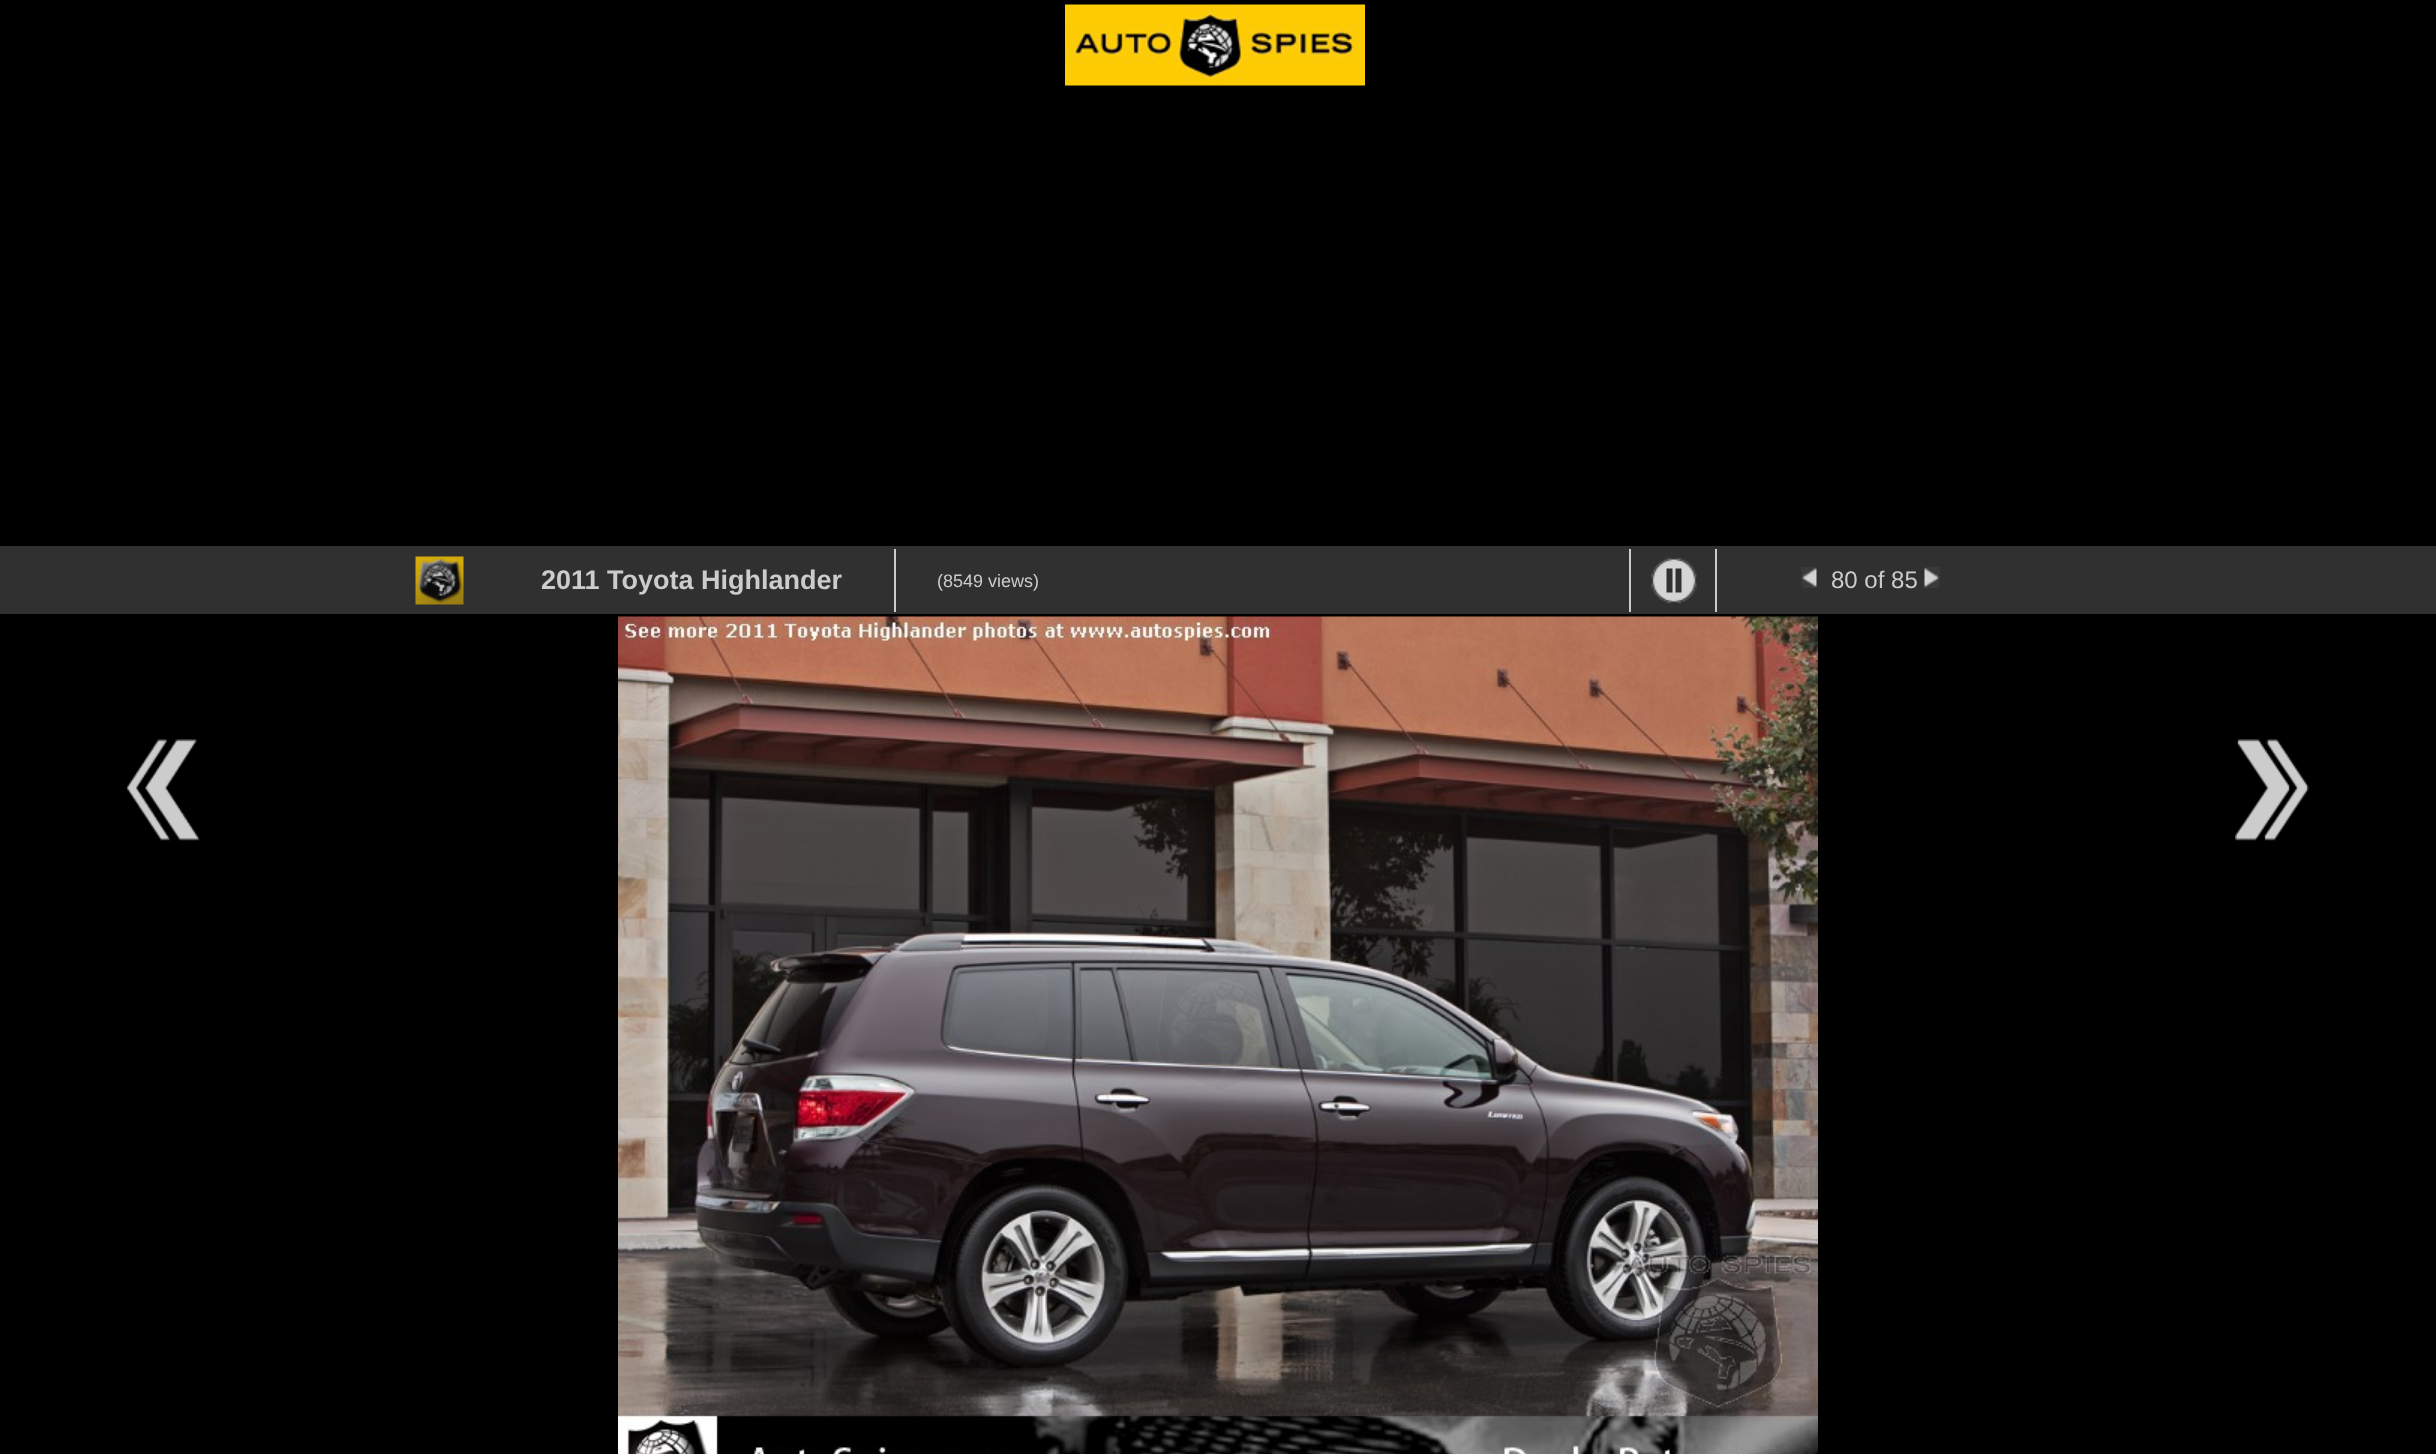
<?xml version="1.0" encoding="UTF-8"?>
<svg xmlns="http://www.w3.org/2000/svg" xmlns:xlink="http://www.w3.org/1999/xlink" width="2436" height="1454">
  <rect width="100%" height="100%" fill="#000000" />
  <image x="1065" y="4" width="300" height="82" xlink:href="image1.png" />
  <rect y="546" width="2436" height="68" fill="#303030" />
  <image x="415" y="556" width="49" height="49" xlink:href="image2.png" />
  <rect x="894" y="549" width="2" height="63" fill="#cccccc" />
  <rect x="1629" y="549" width="2" height="63" fill="#cccccc" />
  <rect x="1715" y="549" width="2" height="63" fill="#cccccc" />
  <image x="1651" y="557" width="46" height="47" xlink:href="image3.png" />
  <image x="1801" y="567" width="16" height="21" xlink:href="image4.png" />
  <image x="1924" y="567" width="16" height="21" xlink:href="image5.png" />
  <image x="618" y="616" width="1200" height="838" xlink:href="image6.png" />
  <image x="126" y="739" width="74" height="102" xlink:href="image7.png" />
  <image x="2235" y="739" width="74" height="102" xlink:href="image8.png" />
  <text x="541" y="589" style="font-family: Liberation Sans; font-size: 27px; font-weight: bold; fill: #cccccc">2011 Toyota Highlander</text>
  <text x="937" y="587" style="font-family: Liberation Sans; font-size: 18px; fill: #cccccc">(8549 views)</text>
  <text x="1831" y="588" style="font-family: Liberation Sans; font-size: 24px; fill: #cccccc">80 of 85</text>
</svg>
